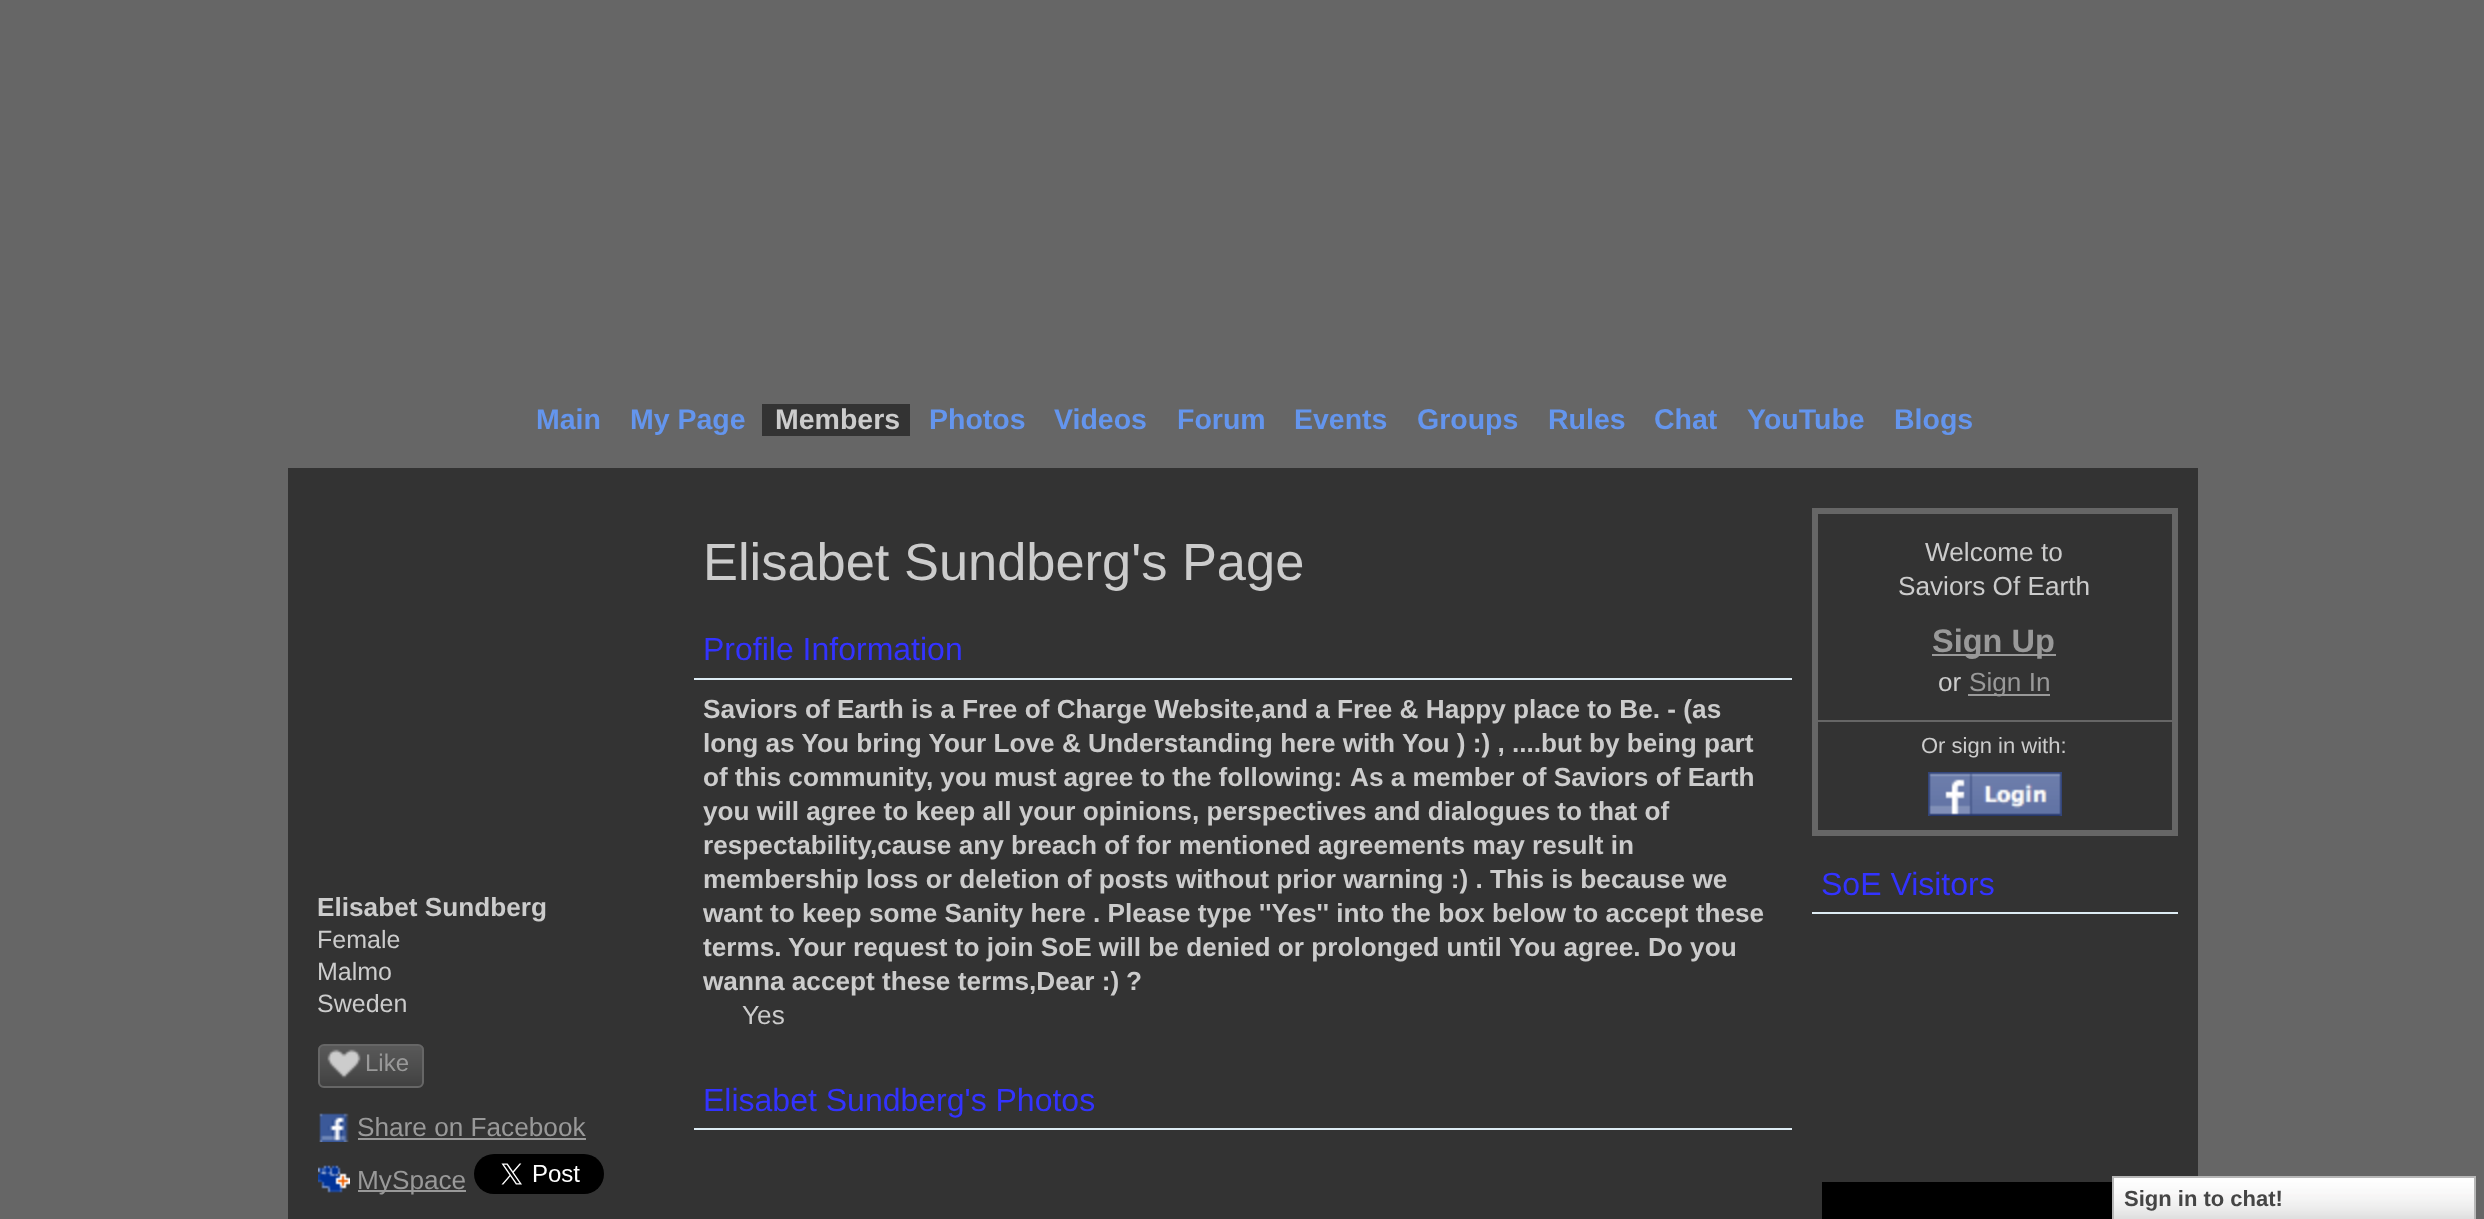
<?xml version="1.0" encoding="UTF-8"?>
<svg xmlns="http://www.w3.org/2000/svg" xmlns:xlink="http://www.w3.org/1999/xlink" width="2484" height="1219">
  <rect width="100%" height="100%" fill="#666666" />
  <rect x="762" y="404" width="148" height="32" fill="#333333" />
  <rect x="288" y="468" width="1910" height="751" fill="#333333" />
  <image x="318" y="1046" width="106" height="42" xlink:href="image1.png" />
  <rect x="319" y="1045" width="104" height="42" rx="5" fill="none" stroke="#666666" stroke-width="2" />
  <image x="327" y="1049" width="34" height="30" xlink:href="image2.png" />
  <image x="319" y="1113" width="30" height="29" xlink:href="image3.png" />
  <rect x="358" y="1138" width="228" height="2" fill="#999999" />
  <image x="318" y="1165" width="32" height="28" xlink:href="image4.png" />
  <rect x="358" y="1190" width="108" height="2" fill="#999999" />
  <image x="474" y="1154" width="130" height="40" xlink:href="image5.png" />
  <rect x="694" y="678" width="1098" height="2" fill="#deecf4" />
  <rect x="694" y="1128" width="1098" height="2" fill="#deecf4" />
  <rect x="1815" y="511" width="360" height="322" fill="none" stroke="#666666" stroke-width="6" />
  <rect x="1932" y="654" width="124" height="2" fill="#999999" />
  <rect x="1968" y="694" width="82" height="2" fill="#999999" />
  <rect x="1818" y="720" width="354" height="2" fill="#666666" />
  <image x="1928" y="772" width="134" height="44" xlink:href="image6.png" />
  <rect x="1812" y="912" width="366" height="2" fill="#deecf4" />
  <rect x="1822" y="1182" width="290" height="37" fill="#000000" />
  <image x="2114" y="1178" width="360" height="41" xlink:href="image7.png" />
  <rect x="2113" y="1177" width="362" height="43" fill="none" stroke="#b7b7b7" stroke-width="2" />
  <text x="536" y="429" style="font-family: Liberation Sans; font-size: 28.5px; font-weight: bold; fill: #6495ed">Main</text>
  <text x="630" y="429" style="font-family: Liberation Sans; font-size: 28.5px; font-weight: bold; fill: #6495ed">My Page</text>
  <text x="775" y="429" style="font-family: Liberation Sans; font-size: 28.5px; font-weight: bold; fill: #cccccc">Members</text>
  <text x="929" y="429" style="font-family: Liberation Sans; font-size: 28.5px; font-weight: bold; fill: #6495ed">Photos</text>
  <text x="1054" y="429" style="font-family: Liberation Sans; font-size: 28.5px; font-weight: bold; fill: #6495ed">Videos</text>
  <text x="1177" y="429" style="font-family: Liberation Sans; font-size: 28.5px; font-weight: bold; fill: #6495ed">Forum</text>
  <text x="1294" y="429" style="font-family: Liberation Sans; font-size: 28.5px; font-weight: bold; fill: #6495ed">Events</text>
  <text x="1417" y="429" style="font-family: Liberation Sans; font-size: 28.5px; font-weight: bold; fill: #6495ed">Groups</text>
  <text x="1548" y="429" style="font-family: Liberation Sans; font-size: 28.5px; font-weight: bold; fill: #6495ed">Rules</text>
  <text x="1654" y="429" style="font-family: Liberation Sans; font-size: 28.5px; font-weight: bold; fill: #6495ed">Chat</text>
  <text x="1747" y="429" style="font-family: Liberation Sans; font-size: 28.5px; font-weight: bold; fill: #6495ed">YouTube</text>
  <text x="1894" y="429" style="font-family: Liberation Sans; font-size: 28.5px; font-weight: bold; fill: #6495ed">Blogs</text>
  <text x="317" y="916" style="font-family: Liberation Sans; font-size: 26.2px; font-weight: bold; fill: #cccccc">Elisabet Sundberg</text>
  <text x="317" y="948" style="font-family: Liberation Sans; font-size: 25px; fill: #cccccc">Female</text>
  <text x="317" y="980" style="font-family: Liberation Sans; font-size: 25px; fill: #cccccc">Malmo</text>
  <text x="317" y="1012" style="font-family: Liberation Sans; font-size: 25px; fill: #cccccc">Sweden</text>
  <text x="365" y="1071" style="font-family: Liberation Sans; font-size: 24px; fill: #999999">Like</text>
  <text x="357" y="1136" style="font-family: Liberation Sans; font-size: 26.2px; fill: #999999">Share on Facebook</text>
  <text x="357" y="1189" style="font-family: Liberation Sans; font-size: 26.2px; fill: #999999">MySpace</text>
  <text x="703" y="580" style="font-family: Liberation Sans; font-size: 52.4px; fill: #cccccc">Elisabet Sundberg's Page</text>
  <text x="703" y="660" style="font-family: Liberation Sans; font-size: 32px; fill: #3333ff">Profile Information</text>
  <text x="703" y="718" style="font-family: Liberation Sans; font-size: 26.2px; font-weight: bold; fill: #cccccc">Saviors of Earth is a Free of Charge Website,and a Free &amp; Happy place to Be. - (as</text>
  <text x="703" y="752" style="font-family: Liberation Sans; font-size: 26.2px; font-weight: bold; fill: #cccccc">long as You bring Your Love &amp; Understanding here with You ) :) , ....but by being part</text>
  <text x="703" y="786" word-spacing="-0.25" style="font-family: Liberation Sans; font-size: 26.2px; font-weight: bold; fill: #cccccc">of this community, you must agree to the following:</text>
  <text x="1350" y="786" style="font-family: Liberation Sans; font-size: 26.2px; font-weight: bold; fill: #cccccc">As a member of Saviors of Earth</text>
  <text x="703" y="820" style="font-family: Liberation Sans; font-size: 26.2px; font-weight: bold; fill: #cccccc">you will agree to keep all your opinions, perspectives and dialogues to that of</text>
  <text x="703" y="854" style="font-family: Liberation Sans; font-size: 26.2px; font-weight: bold; fill: #cccccc">respectability,cause any breach of for mentioned agreements may result in</text>
  <text x="703" y="888" style="font-family: Liberation Sans; font-size: 26.2px; font-weight: bold; fill: #cccccc">membership loss or deletion of posts without prior warning :) . This is because we</text>
  <text x="703" y="922" style="font-family: Liberation Sans; font-size: 26.2px; font-weight: bold; fill: #cccccc">want to keep some Sanity here . Please type ''Yes'' into the box below to accept these</text>
  <text x="703" y="956" style="font-family: Liberation Sans; font-size: 26.2px; font-weight: bold; fill: #cccccc">terms.</text>
  <text x="788" y="956" style="font-family: Liberation Sans; font-size: 26.2px; font-weight: bold; fill: #cccccc">Your request to join SoE will be denied or prolonged until You agree. Do you</text>
  <text x="703" y="990" style="font-family: Liberation Sans; font-size: 26.2px; font-weight: bold; fill: #cccccc">wanna accept these terms,Dear :)</text>
  <text x="1126" y="990" style="font-family: Liberation Sans; font-size: 26.2px; font-weight: bold; fill: #cccccc">?</text>
  <text x="742" y="1024" style="font-family: Liberation Sans; font-size: 26.2px; fill: #cccccc">Yes</text>
  <text x="703" y="1111" style="font-family: Liberation Sans; font-size: 32px; fill: #3333ff">Elisabet Sundberg's Photos</text>
  <text x="1925" y="561" style="font-family: Liberation Sans; font-size: 26.2px; fill: #cccccc">Welcome to</text>
  <text x="1898" y="595" style="font-family: Liberation Sans; font-size: 26.2px; fill: #cccccc">Saviors Of Earth</text>
  <text x="1932" y="652" style="font-family: Liberation Sans; font-size: 32.5px; font-weight: bold; fill: #999999">Sign Up</text>
  <text x="1938" y="691" style="font-family: Liberation Sans; font-size: 26.2px; fill: #cccccc">or</text>
  <text x="1969" y="691" style="font-family: Liberation Sans; font-size: 26.2px; fill: #999999">Sign In</text>
  <text x="1921" y="753" style="font-family: Liberation Sans; font-size: 22px; fill: #cccccc">Or sign in with:</text>
  <text x="1821" y="895" style="font-family: Liberation Sans; font-size: 32px; fill: #3333ff">SoE Visitors</text>
  <text x="2124" y="1206" style="font-family: Liberation Sans; font-size: 22px; font-weight: bold; fill: #454545">Sign in to chat!</text>
</svg>
